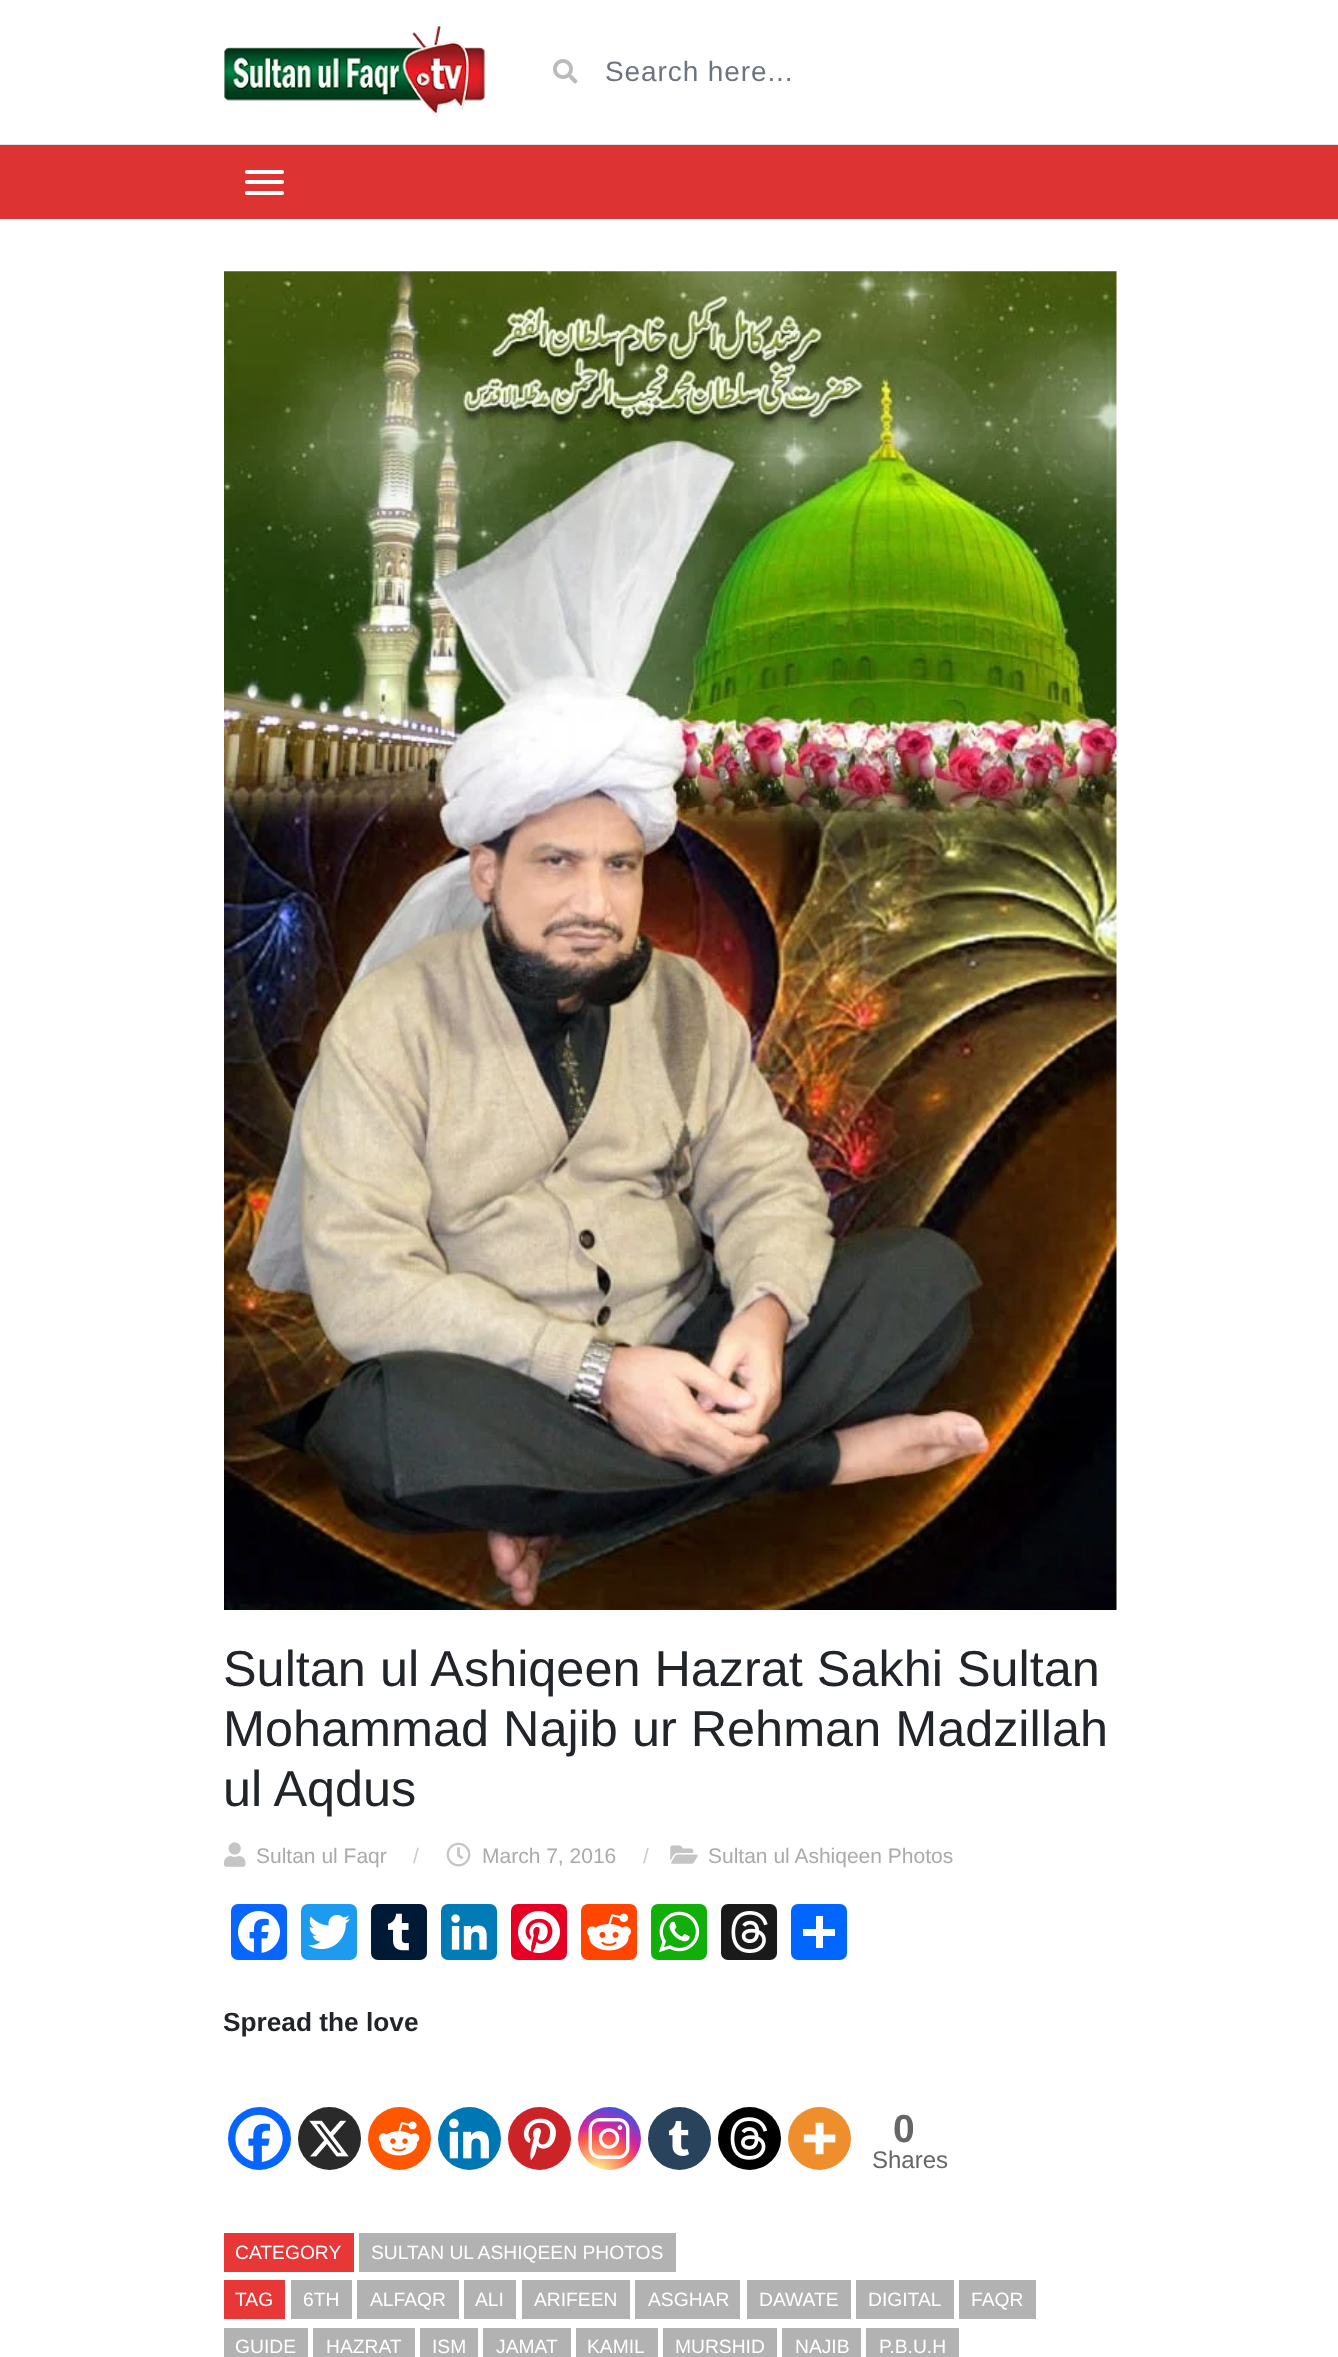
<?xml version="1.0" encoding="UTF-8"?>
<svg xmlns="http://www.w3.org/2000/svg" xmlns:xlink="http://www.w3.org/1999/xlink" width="1338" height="2357">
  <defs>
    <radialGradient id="g1" gradientUnits="userSpaceOnUse" cx="596" cy="2174" r="81"><stop offset="0" stop-color="#fdf497" /><stop offset="0.05" stop-color="#fdf497" /><stop offset="0.45" stop-color="#fd5949" /><stop offset="0.6" stop-color="#d6249f" /><stop offset="0.9" stop-color="#285aeb" /></radialGradient>
  </defs>
  <rect width="100%" height="100%" fill="#ffffff" />
  <rect y="144" width="1338" height="1" fill="#dee2e6" />
  <image x="224" y="26" width="261" height="92" xlink:href="image1.png" />
  <image x="553" y="59" width="25" height="25" xlink:href="image2.png" />
  <rect y="145" width="1338" height="74" fill="#dd3333" />
  <rect x="245" y="170" width="39" height="4" rx="2" fill="#ffffff" />
  <rect x="245" y="180" width="39" height="4" rx="2" fill="#ffffff" />
  <rect x="245" y="191" width="39" height="4" rx="2" fill="#ffffff" />
  <image x="224" y="271" width="893" height="1339" xlink:href="image3.png" />
  <image x="224" y="1842" width="22" height="25" xlink:href="image4.png" />
  <image x="446" y="1842" width="25" height="25" xlink:href="image5.png" />
  <image x="670" y="1845" width="28" height="19" xlink:href="image6.png" />
  <rect x="231" y="1904" width="56" height="56" rx="7" fill="#0866ff" />
  <image x="238" y="1911" width="42" height="42" xlink:href="image7.png" />
  <rect x="301" y="1904" width="56" height="56" rx="7" fill="#1d9bf0" />
  <image x="308" y="1914" width="42" height="36" xlink:href="image8.png" />
  <rect x="371" y="1904" width="56" height="56" rx="7" fill="#001935" />
  <image x="388" y="1913" width="21" height="38" xlink:href="image9.png" />
  <rect x="441" y="1904" width="56" height="56" rx="7" fill="#007bb5" />
  <image x="451" y="1914" width="36" height="36" xlink:href="image10.png" />
  <rect x="511" y="1904" width="56" height="56" rx="7" fill="#e60023" />
  <image x="518" y="1911" width="42" height="42" xlink:href="image11.png" />
  <rect x="581" y="1904" width="56" height="56" rx="7" fill="#ff4500" />
  <image x="587" y="1913" width="44" height="38" xlink:href="image12.png" />
  <rect x="651" y="1904" width="56" height="56" rx="7" fill="#12af0a" />
  <image x="659" y="1911" width="41" height="42" xlink:href="image13.png" />
  <rect x="721" y="1904" width="56" height="56" rx="7" fill="#1a1a1a" />
  <image x="731" y="1911" width="37" height="42" xlink:href="image14.png" />
  <rect x="791" y="1904" width="56" height="56" rx="7" fill="#0166ff" />
  <rect x="816" y="1916" width="7" height="32" fill="#ffffff" />
  <rect x="803" y="1929" width="32" height="7" fill="#ffffff" />
  <circle cx="259.5" cy="2138.5" r="31.5" fill="#0765fe" />
  <image x="235" y="2114" width="48" height="48" xlink:href="image15.png" />
  <circle cx="329.5" cy="2138.5" r="31.5" fill="#2a2a2a" />
  <image x="309" y="2120" width="40" height="37" xlink:href="image16.png" />
  <circle cx="399.5" cy="2138.5" r="31.5" fill="#ff5700" />
  <image x="378" y="2121" width="42" height="35" xlink:href="image17.png" />
  <circle cx="469.5" cy="2138.5" r="31.5" fill="#0077b5" />
  <image x="449" y="2118" width="40" height="41" xlink:href="image18.png" />
  <circle cx="539.5" cy="2138.5" r="31.5" fill="#cc2329" />
  <image x="523" y="2118" width="33" height="42" xlink:href="image19.png" />
  <circle cx="609.5" cy="2138.5" r="31.5" fill="url(#g1)" />
  <image x="588" y="2118" width="42" height="41" xlink:href="image20.png" />
  <circle cx="679.5" cy="2138.5" r="31.5" fill="#29435d" />
  <image x="668" y="2121" width="21" height="35" xlink:href="image21.png" />
  <circle cx="749.5" cy="2138.5" r="31.5" fill="#000000" />
  <image x="730" y="2117" width="38" height="43" xlink:href="image22.png" />
  <circle cx="819.5" cy="2138.5" r="31.5" fill="#ee8e2d" />
  <image x="803" y="2122" width="33" height="33" xlink:href="image23.png" />
  <rect x="224" y="2233" width="130" height="39" fill="#e73737" />
  <rect x="359" y="2233" width="317" height="39" fill="#b2b2b2" />
  <rect x="224" y="2280" width="61" height="39" fill="#e73737" />
  <rect x="291" y="2280" width="61" height="39" fill="#b2b2b2" />
  <rect x="357" y="2280" width="102" height="39" fill="#b2b2b2" />
  <rect x="464" y="2280" width="52" height="39" fill="#b2b2b2" />
  <rect x="522" y="2280" width="108" height="39" fill="#b2b2b2" />
  <rect x="635" y="2280" width="105" height="39" fill="#b2b2b2" />
  <rect x="747" y="2280" width="104" height="39" fill="#b2b2b2" />
  <rect x="856" y="2280" width="98" height="39" fill="#b2b2b2" />
  <rect x="959" y="2280" width="77" height="39" fill="#b2b2b2" />
  <rect x="224" y="2328" width="84" height="29" fill="#b2b2b2" />
  <rect x="313" y="2328" width="102" height="29" fill="#b2b2b2" />
  <rect x="420" y="2328" width="58" height="29" fill="#b2b2b2" />
  <rect x="483" y="2328" width="88" height="29" fill="#b2b2b2" />
  <rect x="576" y="2328" width="82" height="29" fill="#b2b2b2" />
  <rect x="663" y="2328" width="114" height="29" fill="#b2b2b2" />
  <rect x="782" y="2328" width="79" height="29" fill="#b2b2b2" />
  <rect x="866" y="2328" width="93" height="29" fill="#b2b2b2" />
  <text x="605" y="81" style="font-family: Liberation Sans; font-size: 28px; letter-spacing: 0.9px; fill: #6c757d">Search here...</text>
  <text x="223" y="1686" style="font-family: Liberation Sans; font-size: 50.4px; fill: #212529">Sultan ul Ashiqeen Hazrat Sakhi Sultan</text>
  <text x="223" y="1746" style="font-family: Liberation Sans; font-size: 50.4px; fill: #212529">Mohammad Najib ur Rehman Madzillah</text>
  <text x="223" y="1806" style="font-family: Liberation Sans; font-size: 50.4px; fill: #212529">ul Aqdus</text>
  <text x="256" y="1863" style="font-family: Liberation Sans; font-size: 21px; fill: #aaaaaa">Sultan ul Faqr</text>
  <text x="413" y="1863" style="font-family: Liberation Sans; font-size: 21px; fill: #cccccc">/</text>
  <text x="482" y="1863" style="font-family: Liberation Sans; font-size: 21px; fill: #aaaaaa">March 7, 2016</text>
  <text x="643" y="1863" style="font-family: Liberation Sans; font-size: 21px; fill: #cccccc">/</text>
  <text x="708" y="1863" style="font-family: Liberation Sans; font-size: 21px; fill: #aaaaaa">Sultan ul Ashiqeen Photos</text>
  <text x="223" y="2031" style="font-family: Liberation Sans; font-size: 26.25px; font-weight: bold; fill: #212529">Spread the love</text>
  <text x="893" y="2142" style="font-family: Liberation Sans; font-size: 39px; font-weight: bold; fill: #666666">0</text>
  <text x="872" y="2168" style="font-family: Liberation Sans; font-size: 24px; fill: #666666">Shares</text>
  <text x="235" y="2259" style="font-family: Liberation Sans; font-size: 19.25px; fill: #ffffff">CATEGORY</text>
  <text x="371" y="2259" style="font-family: Liberation Sans; font-size: 19.25px; fill: #ffffff">SULTAN UL ASHIQEEN PHOTOS</text>
  <text x="235" y="2306" style="font-family: Liberation Sans; font-size: 19.25px; fill: #ffffff">TAG</text>
  <text x="303" y="2306" style="font-family: Liberation Sans; font-size: 19.25px; fill: #ffffff">6TH</text>
  <text x="370" y="2306" style="font-family: Liberation Sans; font-size: 19.25px; fill: #ffffff">ALFAQR</text>
  <text x="475" y="2306" style="font-family: Liberation Sans; font-size: 19.25px; fill: #ffffff">ALI</text>
  <text x="534" y="2306" style="font-family: Liberation Sans; font-size: 19.25px; fill: #ffffff">ARIFEEN</text>
  <text x="648" y="2306" style="font-family: Liberation Sans; font-size: 19.25px; fill: #ffffff">ASGHAR</text>
  <text x="759" y="2306" style="font-family: Liberation Sans; font-size: 19.25px; fill: #ffffff">DAWATE</text>
  <text x="868" y="2306" style="font-family: Liberation Sans; font-size: 19.25px; fill: #ffffff">DIGITAL</text>
  <text x="971" y="2306" style="font-family: Liberation Sans; font-size: 19.25px; fill: #ffffff">FAQR</text>
  <text x="235" y="2353" style="font-family: Liberation Sans; font-size: 19.25px; fill: #ffffff">GUIDE</text>
  <text x="326" y="2353" style="font-family: Liberation Sans; font-size: 19.25px; fill: #ffffff">HAZRAT</text>
  <text x="432" y="2353" style="font-family: Liberation Sans; font-size: 19.25px; fill: #ffffff">ISM</text>
  <text x="496" y="2353" style="font-family: Liberation Sans; font-size: 19.25px; fill: #ffffff">JAMAT</text>
  <text x="587" y="2353" style="font-family: Liberation Sans; font-size: 19.25px; fill: #ffffff">KAMIL</text>
  <text x="675" y="2353" style="font-family: Liberation Sans; font-size: 19.25px; fill: #ffffff">MURSHID</text>
  <text x="795" y="2353" style="font-family: Liberation Sans; font-size: 19.25px; fill: #ffffff">NAJIB</text>
  <text x="879" y="2353" style="font-family: Liberation Sans; font-size: 19.25px; fill: #ffffff">P.B.U.H</text>
</svg>
